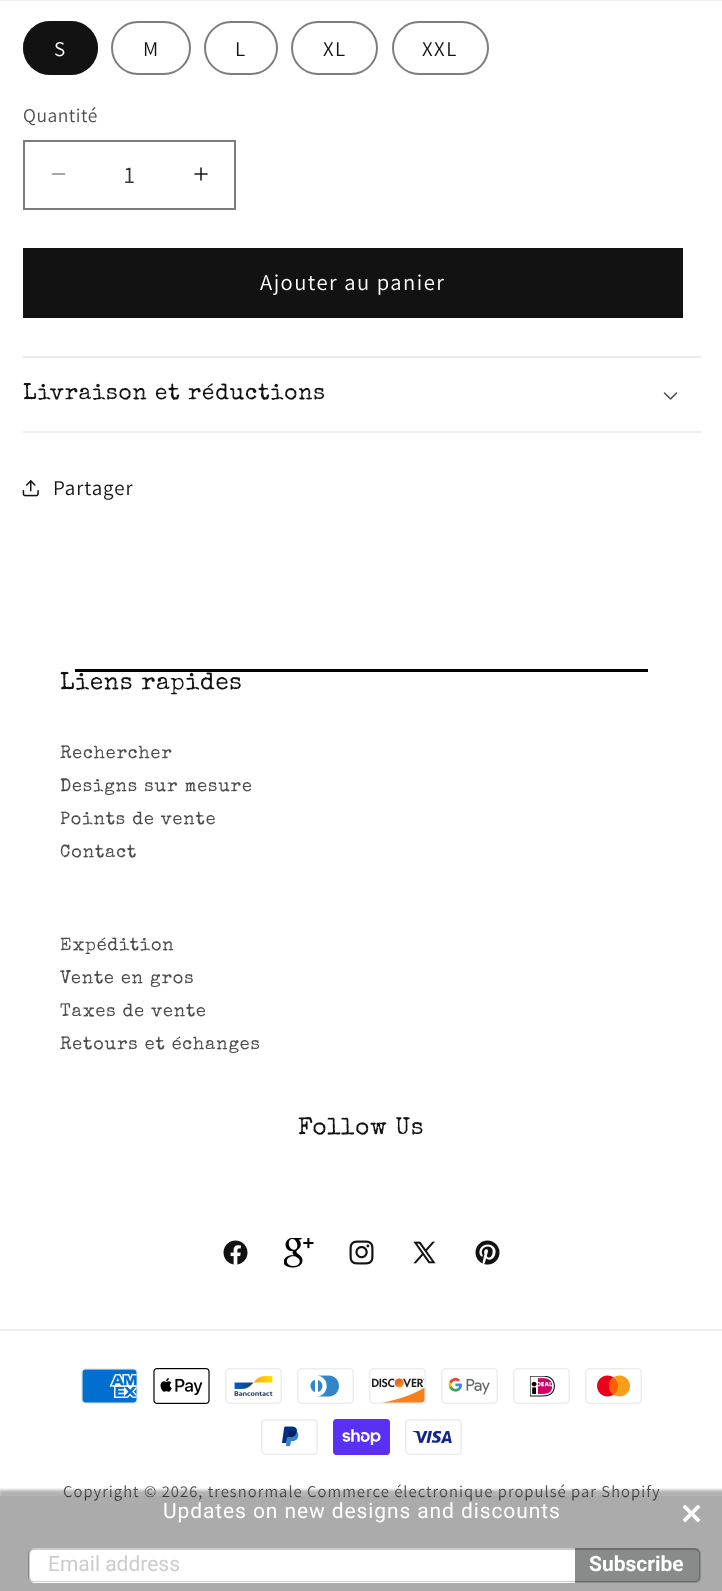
<?xml version="1.0" encoding="UTF-8"?>
<svg xmlns="http://www.w3.org/2000/svg" xmlns:xlink="http://www.w3.org/1999/xlink" width="722" height="1591">
  <defs>
    <clipPath id="clip1"><rect x="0" y="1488" width="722" height="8" /></clipPath>
  </defs>
  <rect width="100%" height="100%" fill="#ffffff" />
  <rect width="722" height="1" fill="#ececec" />
  <rect x="23" y="21" width="75" height="54" rx="27" fill="#121212" />
  <rect x="24" y="22" width="73" height="52" rx="26" fill="none" stroke="#121212" stroke-opacity="0.55" stroke-width="2" />
  <rect x="112" y="22" width="78" height="52" rx="26" fill="none" stroke="#7d7d7d" stroke-width="2" />
  <rect x="205" y="22" width="72" height="52" rx="26" fill="none" stroke="#7d7d7d" stroke-width="2" />
  <rect x="292" y="22" width="85" height="52" rx="26" fill="none" stroke="#7d7d7d" stroke-width="2" />
  <rect x="393" y="22" width="95" height="52" rx="26" fill="none" stroke="#7d7d7d" stroke-width="2" />
  <image x="51" y="173" width="15" height="2" xlink:href="image1.png" />
  <image x="194" y="167" width="14" height="14" xlink:href="image2.png" />
  <rect x="24" y="141" width="211" height="68" fill="none" stroke="#7d7d7d" stroke-width="2" />
  <rect x="23" y="248" width="660" height="70" fill="#121212" />
  <rect x="23" y="356" width="678" height="2" fill="#ececec" />
  <rect x="23" y="431" width="678" height="2" fill="#ececec" />
  <image x="663" y="392" width="15" height="8" xlink:href="image3.png" />
  <image x="22" y="480" width="17" height="17" xlink:href="image4.png" />
  <image x="223" y="1240" width="25" height="25" xlink:href="image5.png" />
  <image x="284" y="1238" width="30" height="30" xlink:href="image6.png" />
  <image x="349" y="1240" width="25" height="25" xlink:href="image7.png" />
  <image x="413" y="1241" width="23" height="23" xlink:href="image8.png" />
  <image x="475" y="1240" width="25" height="25" xlink:href="image9.png" />
  <rect y="1329" width="722" height="2" fill="#ececec" />
  <image x="81" y="1368" width="57" height="36" xlink:href="image10.png" />
  <image x="153" y="1368" width="57" height="36" xlink:href="image11.png" />
  <image x="225" y="1368" width="57" height="36" xlink:href="image12.png" />
  <image x="297" y="1368" width="57" height="36" xlink:href="image13.png" />
  <image x="369" y="1368" width="57" height="36" xlink:href="image14.png" />
  <image x="441" y="1368" width="57" height="36" xlink:href="image15.png" />
  <image x="513" y="1368" width="57" height="36" xlink:href="image16.png" />
  <image x="585" y="1368" width="57" height="36" xlink:href="image17.png" />
  <image x="261" y="1419" width="57" height="36" xlink:href="image18.png" />
  <image x="333" y="1419" width="57" height="36" xlink:href="image19.png" />
  <image x="405" y="1419" width="57" height="36" xlink:href="image20.png" />
  <g clip-path="url(#clip1)">
    <rect x="-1" y="1490" width="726" height="99" fill="#000000" fill-opacity="0.3" filter="blur(1.5px)" />
  </g>
  <text x="54" y="56" style="font-family: Assistant; font-size: 21px; letter-spacing: 1.5px; fill: #ffffff">S</text>
  <text x="143" y="56" style="font-family: Assistant; font-size: 21px; letter-spacing: 1.5px; fill: #121212">M</text>
  <text x="235" y="56" style="font-family: Assistant; font-size: 21px; letter-spacing: 1.5px; fill: #121212">L</text>
  <text x="323" y="56" style="font-family: Assistant; font-size: 21px; letter-spacing: 1.5px; fill: #121212">XL</text>
  <text x="422" y="56" style="font-family: Assistant; font-size: 21px; letter-spacing: 1.5px; fill: #121212">XXL</text>
  <text x="23" y="122" style="font-family: Assistant; font-size: 19.5px; letter-spacing: 0.5px; fill: #4d4d4d">Quantité</text>
  <text x="124" y="183" style="font-family: Assistant; font-size: 24px; fill: #363636">1</text>
  <text x="260" y="290" style="font-family: Assistant; font-size: 22.5px; letter-spacing: 1.5px; fill: #ffffff">Ajouter au panier</text>
  <text x="23" y="399" style="font-family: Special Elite; font-size: 22.5px; letter-spacing: 0.9px; fill: #121212">Livraison et réductions</text>
  <text x="53" y="495" style="font-family: Assistant; font-size: 21px; letter-spacing: 0.9px; fill: #121212">Partager</text>
  <text x="60" y="689" style="font-family: Special Elite; font-size: 24px; letter-spacing: 0.9px; fill: #121212">Liens rapides</text>
  <rect x="75" y="669" width="573" height="3" fill="#000000" />
  <text x="60" y="758" style="font-family: Special Elite; font-size: 18px; letter-spacing: 0.9px; fill: #4d4d4d">Rechercher</text>
  <text x="60" y="791" style="font-family: Special Elite; font-size: 18px; letter-spacing: 0.9px; fill: #4d4d4d">Designs sur mesure</text>
  <text x="60" y="824" style="font-family: Special Elite; font-size: 18px; letter-spacing: 0.9px; fill: #4d4d4d">Points de vente</text>
  <text x="60" y="857" style="font-family: Special Elite; font-size: 18px; letter-spacing: 0.9px; fill: #4d4d4d">Contact</text>
  <text x="60" y="950" style="font-family: Special Elite; font-size: 18px; letter-spacing: 0.9px; fill: #4d4d4d">Expédition</text>
  <text x="60" y="983" style="font-family: Special Elite; font-size: 18px; letter-spacing: 0.9px; fill: #4d4d4d">Vente en gros</text>
  <text x="60" y="1016" style="font-family: Special Elite; font-size: 18px; letter-spacing: 0.9px; fill: #4d4d4d">Taxes de vente</text>
  <text x="60" y="1049" style="font-family: Special Elite; font-size: 18px; letter-spacing: 0.9px; fill: #4d4d4d">Retours et échanges</text>
  <text x="298" y="1134" style="font-family: Special Elite; font-size: 24px; letter-spacing: 0.9px; fill: #121212">Follow Us</text>
  <text x="63" y="1497" style="font-family: Assistant; font-size: 16.5px; letter-spacing: 1.05px; fill: #4d4d4d">Copyright © 2026, tresnormale Commerce électronique propulsé par Shopify</text>
  <rect y="1496" width="722" height="95" fill="#000000" fill-opacity="0.33" />
  <text x="163" y="1518" style="font-family: Roboto; font-size: 21px; letter-spacing: 0.9px; fill: #ffffff">Updates on new designs and discounts</text>
  <path d="M 35 1548 h 540 v 35 h -540 c -3.5 0 -6 -2.5 -6 -6 v -23 c 0 -3.5 2.5 -6 6 -6 z" fill="#ffffff" />
  <path d="M 34 1548 h 540 v 34 h -540 c -3 0 -6 -2 -6 -6 v -22 c 0 -3 3 -6 6 -6 z m 0 2 h 540 v 31 h -540 c -2 0 -4 -2 -4 -5 v -22 c 0 -2 2 -4 4 -4 z" fill="#000000" fill-opacity="0.2" fill-rule="evenodd" />
  <text x="48" y="1571" style="font-family: Roboto; font-size: 21px; fill: #cccccc">Email address</text>
  <path d="M 575 1548 h 120 c 3.5 0 6 2.5 6 6 v 23 c 0 3.5 -2.5 6 -6 6 h -120 z" fill="#898a8a" />
  <path d="M 574 1548 h 120 c 4 0 6 3 6 6 v 22 c 0 4 -2 6 -6 6 h -120 z m 0 2 h 120 c 3 0 5 2 5 4 v 22 c 0 3 -2 5 -5 5 h -120 z" fill="#000000" fill-opacity="0.2" fill-rule="evenodd" />
  <text x="589" y="1571" style="font-family: Roboto; font-size: 21px; font-weight: bold; fill: #ffffff">Subscribe</text>
  <image x="683" y="1505" width="18" height="18" xlink:href="image21.png" />
</svg>
